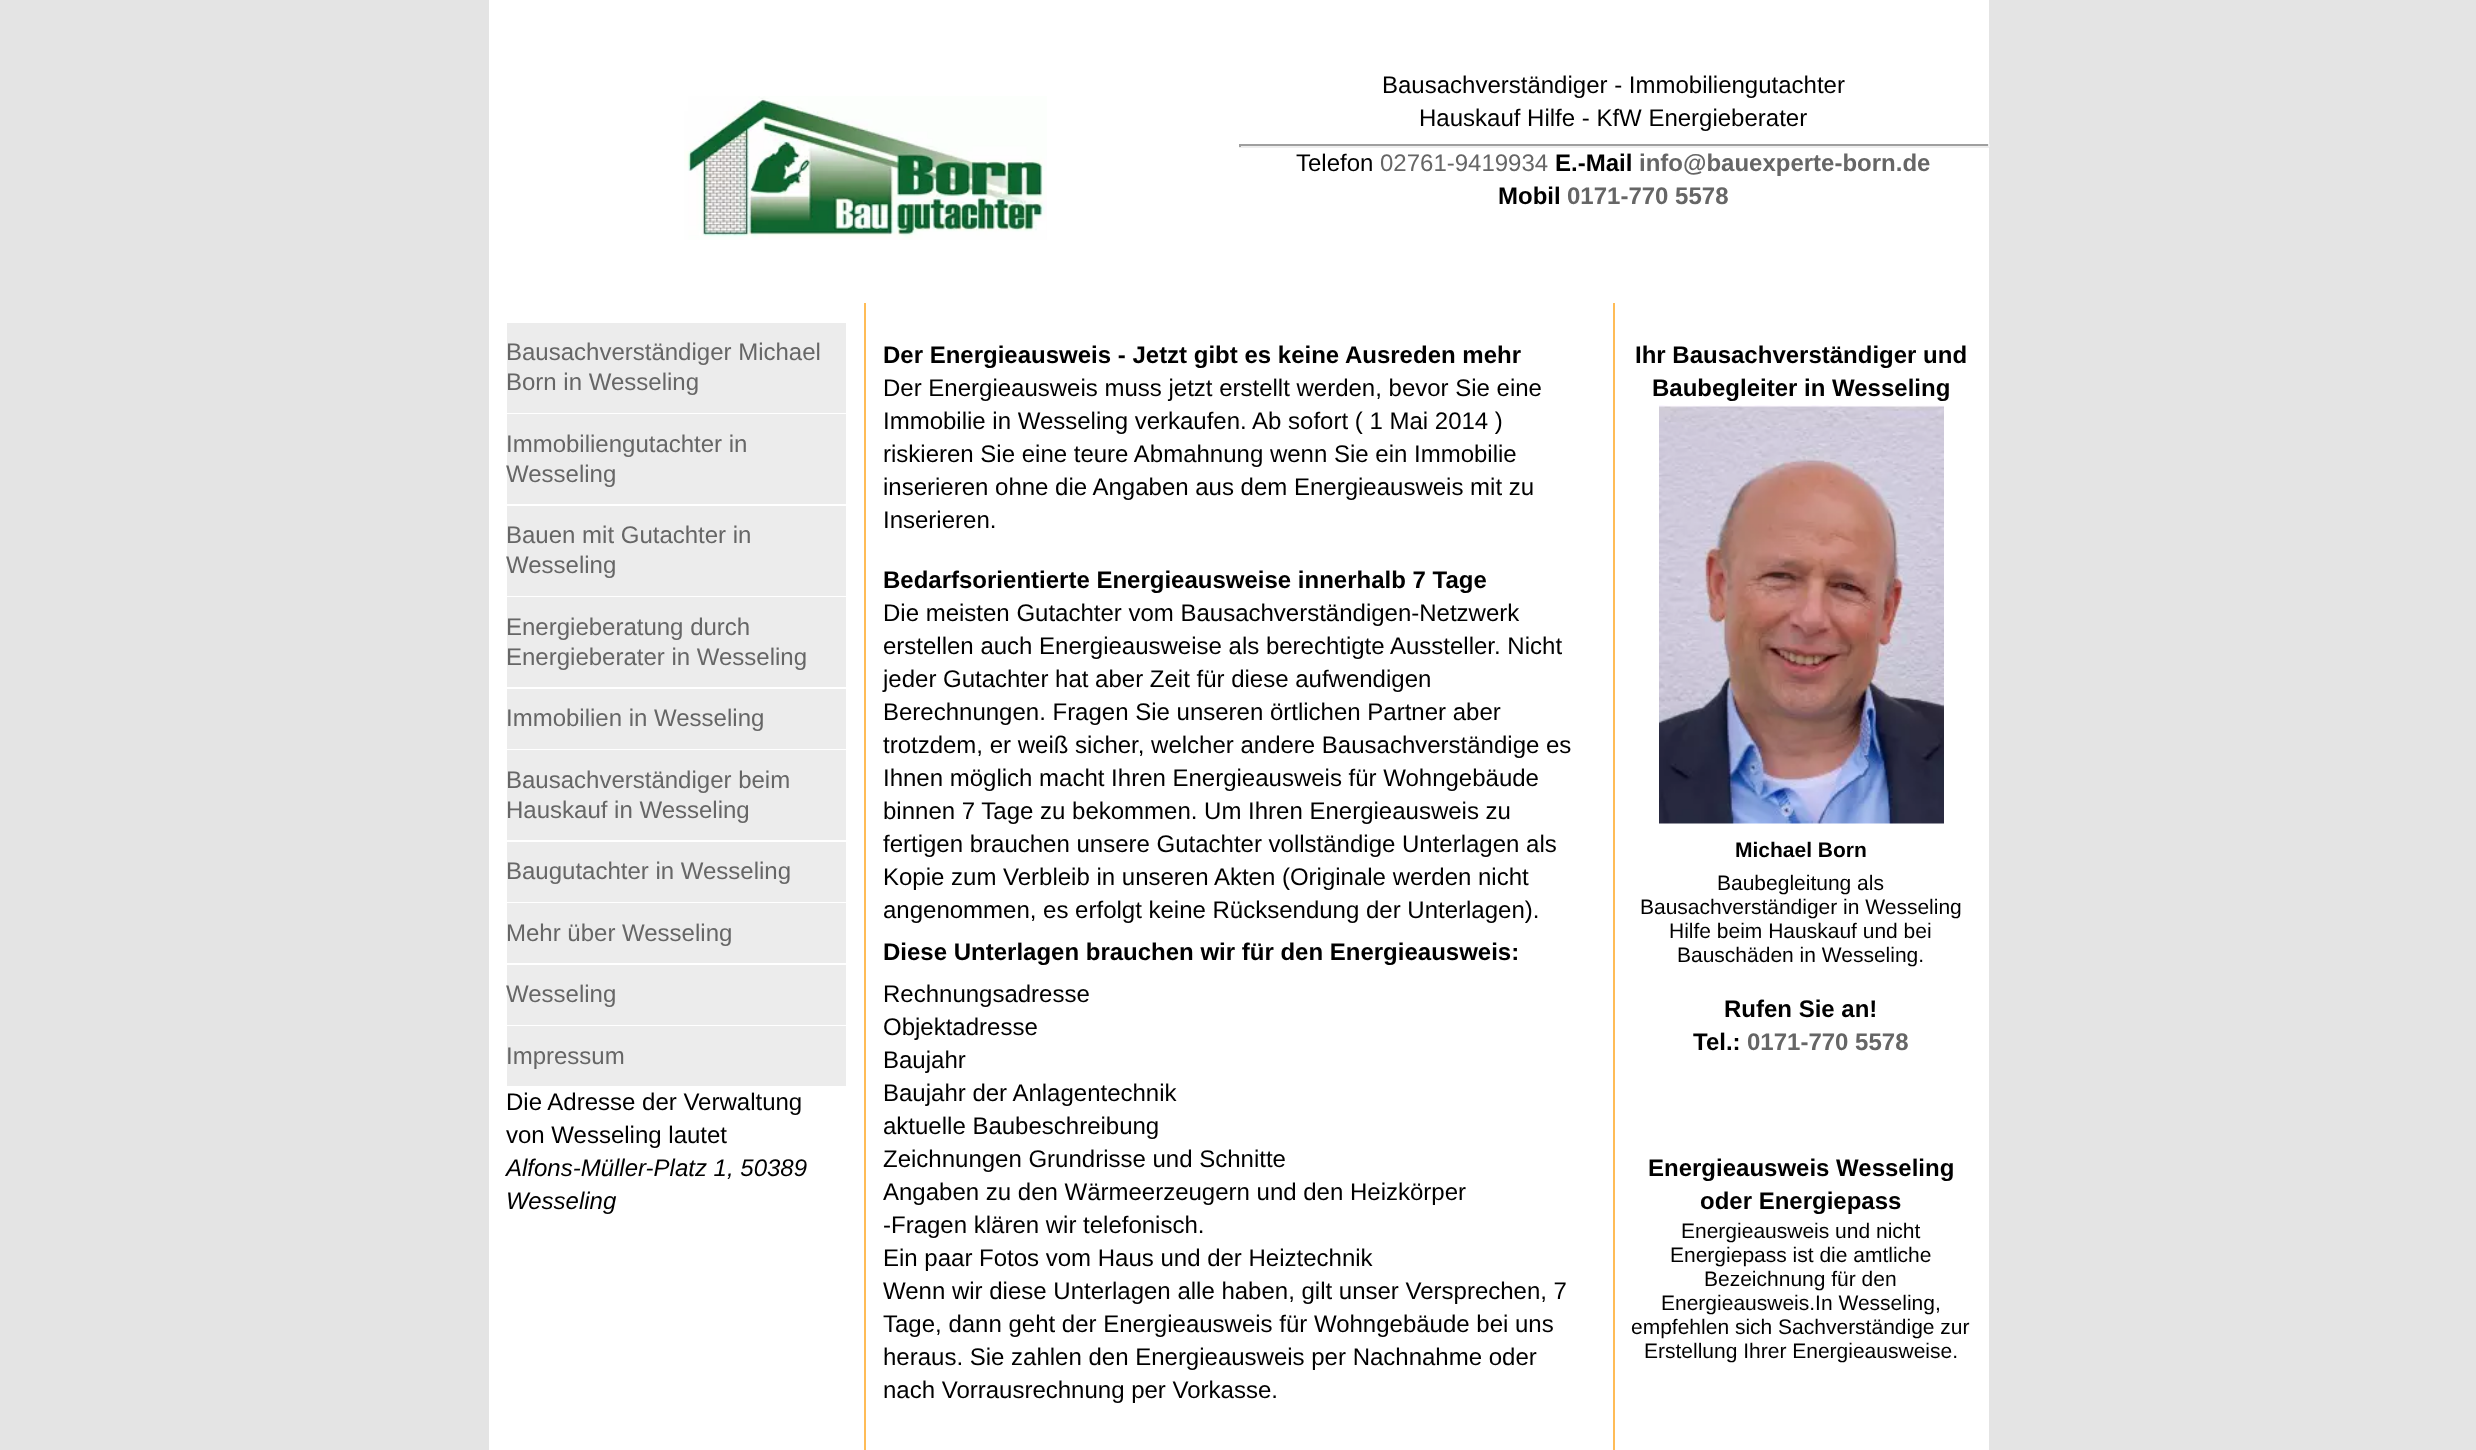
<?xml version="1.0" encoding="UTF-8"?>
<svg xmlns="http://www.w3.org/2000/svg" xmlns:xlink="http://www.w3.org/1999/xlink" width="2476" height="1450">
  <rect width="100%" height="100%" fill="#e4e4e4" />
  <rect x="489" width="1500" height="1450" fill="#ffffff" />
  <image x="684" y="96" width="363" height="144" xlink:href="image1.png" />
  <rect x="1239" y="144" width="750" height="2" fill="#9f9f9f" />
  <rect x="1988" y="144" width="2" height="3" fill="#eeeeee" />
  <rect x="1239" y="146" width="750" height="2" fill="#eeeeee" />
  <rect x="1239" y="144" width="2" height="3" fill="#9f9f9f" />
  <rect x="507" y="323" width="339" height="90" fill="#ececec" />
  <rect x="507" y="414" width="339" height="90" fill="#ececec" />
  <rect x="507" y="506" width="339" height="90" fill="#ececec" />
  <rect x="507" y="597" width="339" height="90" fill="#ececec" />
  <rect x="507" y="689" width="339" height="60" fill="#ececec" />
  <rect x="507" y="750" width="339" height="90" fill="#ececec" />
  <rect x="507" y="842" width="339" height="60" fill="#ececec" />
  <rect x="507" y="903" width="339" height="60" fill="#ececec" />
  <rect x="507" y="965" width="339" height="60" fill="#ececec" />
  <rect x="507" y="1026" width="339" height="60" fill="#ececec" />
  <rect x="1613" y="303" width="2" height="1147" fill="#ffbc57" />
  <rect x="864" y="303" width="2" height="1147" fill="#ffbc57" />
  <image x="1659" y="405" width="285" height="419" xlink:href="image2.png" />
  <text x="1382" y="93" style="font-family: Liberation Sans; font-size: 24px; fill: #000000">Bausachverständiger - Immobiliengutachter</text>
  <text x="1419" y="126" style="font-family: Liberation Sans; font-size: 24px; fill: #000000">Hauskauf Hilfe - KfW Energieberater</text>
  <text x="1296" y="171" style="font-family: Liberation Sans; font-size: 24px; fill: #000000">Telefon</text>
  <text x="1380" y="171" style="font-family: Liberation Sans; font-size: 24px; fill: #666666">02761-9419934</text>
  <text x="1555" y="171" style="font-family: Liberation Sans; font-size: 24px; font-weight: bold; fill: #000000">E.-Mail</text>
  <text x="1639" y="171" style="font-family: Liberation Sans; font-size: 24px; font-weight: bold; fill: #666666">info@bauexperte-born.de</text>
  <text x="1498" y="204" style="font-family: Liberation Sans; font-size: 24px; font-weight: bold; fill: #000000">Mobil</text>
  <text x="1567" y="204" style="font-family: Liberation Sans; font-size: 24px; font-weight: bold; fill: #666666">0171-770 5578</text>
  <text x="506" y="360" style="font-family: Liberation Sans; font-size: 24px; fill: #666666">Bausachverständiger Michael</text>
  <text x="506" y="390" style="font-family: Liberation Sans; font-size: 24px; fill: #666666">Born in Wesseling</text>
  <text x="506" y="452" style="font-family: Liberation Sans; font-size: 24px; fill: #666666">Immobiliengutachter in</text>
  <text x="506" y="482" style="font-family: Liberation Sans; font-size: 24px; fill: #666666">Wesseling</text>
  <text x="506" y="543" style="font-family: Liberation Sans; font-size: 24px; fill: #666666">Bauen mit Gutachter in</text>
  <text x="506" y="573" style="font-family: Liberation Sans; font-size: 24px; fill: #666666">Wesseling</text>
  <text x="506" y="635" style="font-family: Liberation Sans; font-size: 24px; fill: #666666">Energieberatung durch</text>
  <text x="506" y="665" style="font-family: Liberation Sans; font-size: 24px; fill: #666666">Energieberater in Wesseling</text>
  <text x="506" y="726" style="font-family: Liberation Sans; font-size: 24px; fill: #666666">Immobilien in Wesseling</text>
  <text x="506" y="788" style="font-family: Liberation Sans; font-size: 24px; fill: #666666">Bausachverständiger beim</text>
  <text x="506" y="818" style="font-family: Liberation Sans; font-size: 24px; fill: #666666">Hauskauf in Wesseling</text>
  <text x="506" y="879" style="font-family: Liberation Sans; font-size: 24px; fill: #666666">Baugutachter in Wesseling</text>
  <text x="506" y="941" style="font-family: Liberation Sans; font-size: 24px; fill: #666666">Mehr über Wesseling</text>
  <text x="506" y="1002" style="font-family: Liberation Sans; font-size: 24px; fill: #666666">Wesseling</text>
  <text x="506" y="1064" style="font-family: Liberation Sans; font-size: 24px; fill: #666666">Impressum</text>
  <text x="506" y="1110" style="font-family: Liberation Sans; font-size: 24px; fill: #000000">Die Adresse der Verwaltung</text>
  <text x="506" y="1143" style="font-family: Liberation Sans; font-size: 24px; fill: #000000">von Wesseling lautet</text>
  <text x="506" y="1176" style="font-family: Liberation Sans; font-size: 24px; font-style: italic; fill: #000000">Alfons-Müller-Platz 1, 50389</text>
  <text x="506" y="1209" style="font-family: Liberation Sans; font-size: 24px; font-style: italic; fill: #000000">Wesseling</text>
  <text x="883" y="363" style="font-family: Liberation Sans; font-size: 24px; font-weight: bold; fill: #000000">Der Energieausweis - Jetzt gibt es keine Ausreden mehr</text>
  <text x="883" y="396" style="font-family: Liberation Sans; font-size: 24px; fill: #000000">Der Energieausweis muss jetzt erstellt werden, bevor Sie eine</text>
  <text x="883" y="429" style="font-family: Liberation Sans; font-size: 24px; fill: #000000">Immobilie in Wesseling verkaufen. Ab sofort ( 1 Mai 2014 )</text>
  <text x="883" y="462" style="font-family: Liberation Sans; font-size: 24px; fill: #000000">riskieren Sie eine teure Abmahnung wenn Sie ein Immobilie</text>
  <text x="883" y="495" style="font-family: Liberation Sans; font-size: 24px; fill: #000000">inserieren ohne die Angaben aus dem Energieausweis mit zu</text>
  <text x="883" y="528" style="font-family: Liberation Sans; font-size: 24px; fill: #000000">Inserieren.</text>
  <text x="883" y="588" style="font-family: Liberation Sans; font-size: 24px; font-weight: bold; fill: #000000">Bedarfsorientierte Energieausweise innerhalb 7 Tage</text>
  <text x="883" y="621" style="font-family: Liberation Sans; font-size: 24px; fill: #000000">Die meisten Gutachter vom Bausachverständigen-Netzwerk</text>
  <text x="883" y="654" style="font-family: Liberation Sans; font-size: 24px; fill: #000000">erstellen auch Energieausweise als berechtigte Aussteller. Nicht</text>
  <text x="883" y="687" style="font-family: Liberation Sans; font-size: 24px; fill: #000000">jeder Gutachter hat aber Zeit für diese aufwendigen</text>
  <text x="883" y="720" style="font-family: Liberation Sans; font-size: 24px; fill: #000000">Berechnungen. Fragen Sie unseren örtlichen Partner aber</text>
  <text x="883" y="753" style="font-family: Liberation Sans; font-size: 24px; fill: #000000">trotzdem, er weiß sicher, welcher andere Bausachverständige es</text>
  <text x="883" y="786" style="font-family: Liberation Sans; font-size: 24px; fill: #000000">Ihnen möglich macht Ihren Energieausweis für Wohngebäude</text>
  <text x="883" y="819" style="font-family: Liberation Sans; font-size: 24px; fill: #000000">binnen 7 Tage zu bekommen. Um Ihren Energieausweis zu</text>
  <text x="883" y="852" style="font-family: Liberation Sans; font-size: 24px; fill: #000000">fertigen brauchen unsere Gutachter vollständige Unterlagen als</text>
  <text x="883" y="885" style="font-family: Liberation Sans; font-size: 24px; fill: #000000">Kopie zum Verbleib in unseren Akten (Originale werden nicht</text>
  <text x="883" y="918" style="font-family: Liberation Sans; font-size: 24px; fill: #000000">angenommen, es erfolgt keine Rücksendung der Unterlagen).</text>
  <text x="883" y="960" style="font-family: Liberation Sans; font-size: 24px; font-weight: bold; fill: #000000">Diese Unterlagen brauchen wir für den Energieausweis:</text>
  <text x="883" y="1002" style="font-family: Liberation Sans; font-size: 24px; fill: #000000">Rechnungsadresse</text>
  <text x="883" y="1035" style="font-family: Liberation Sans; font-size: 24px; fill: #000000">Objektadresse</text>
  <text x="883" y="1068" style="font-family: Liberation Sans; font-size: 24px; fill: #000000">Baujahr</text>
  <text x="883" y="1101" style="font-family: Liberation Sans; font-size: 24px; fill: #000000">Baujahr der Anlagentechnik</text>
  <text x="883" y="1134" style="font-family: Liberation Sans; font-size: 24px; fill: #000000">aktuelle Baubeschreibung</text>
  <text x="883" y="1167" style="font-family: Liberation Sans; font-size: 24px; fill: #000000">Zeichnungen Grundrisse und Schnitte</text>
  <text x="883" y="1200" style="font-family: Liberation Sans; font-size: 24px; fill: #000000">Angaben zu den Wärmeerzeugern und den Heizkörper</text>
  <text x="883" y="1233" style="font-family: Liberation Sans; font-size: 24px; fill: #000000">-Fragen klären wir telefonisch.</text>
  <text x="883" y="1266" style="font-family: Liberation Sans; font-size: 24px; fill: #000000">Ein paar Fotos vom Haus und der Heiztechnik</text>
  <text x="883" y="1299" style="font-family: Liberation Sans; font-size: 24px; fill: #000000">Wenn wir diese Unterlagen alle haben, gilt unser Versprechen, 7</text>
  <text x="883" y="1332" style="font-family: Liberation Sans; font-size: 24px; fill: #000000">Tage, dann geht der Energieausweis für Wohngebäude bei uns</text>
  <text x="883" y="1365" style="font-family: Liberation Sans; font-size: 24px; fill: #000000">heraus. Sie zahlen den Energieausweis per Nachnahme oder</text>
  <text x="883" y="1398" style="font-family: Liberation Sans; font-size: 24px; fill: #000000">nach Vorrausrechnung per Vorkasse.</text>
  <text x="1635" y="363" style="font-family: Liberation Sans; font-size: 24px; font-weight: bold; fill: #000000">Ihr Bausachverständiger und</text>
  <text x="1652" y="396" style="font-family: Liberation Sans; font-size: 24px; font-weight: bold; fill: #000000">Baubegleiter in Wesseling</text>
  <text x="1735" y="857" style="font-family: Liberation Sans; font-size: 21px; font-weight: bold; fill: #000000">Michael Born</text>
  <text x="1717" y="890" style="font-family: Liberation Sans; font-size: 21px; fill: #000000">Baubegleitung als</text>
  <text x="1640" y="914" style="font-family: Liberation Sans; font-size: 21px; fill: #000000">Bausachverständiger in Wesseling</text>
  <text x="1669" y="938" style="font-family: Liberation Sans; font-size: 21px; fill: #000000">Hilfe beim Hauskauf und bei</text>
  <text x="1677" y="962" style="font-family: Liberation Sans; font-size: 21px; fill: #000000">Bauschäden in Wesseling.</text>
  <text x="1724" y="1017" style="font-family: Liberation Sans; font-size: 24px; font-weight: bold; fill: #000000">Rufen Sie an!</text>
  <text x="1693" y="1050" style="font-family: Liberation Sans; font-size: 24px; font-weight: bold; fill: #000000">Tel.:</text>
  <text x="1747" y="1050" style="font-family: Liberation Sans; font-size: 24px; font-weight: bold; fill: #666666">0171-770 5578</text>
  <text x="1648" y="1176" style="font-family: Liberation Sans; font-size: 24px; font-weight: bold; fill: #000000">Energieausweis Wesseling</text>
  <text x="1700" y="1209" style="font-family: Liberation Sans; font-size: 24px; font-weight: bold; fill: #000000">oder Energiepass</text>
  <text x="1681" y="1238" style="font-family: Liberation Sans; font-size: 21px; fill: #000000">Energieausweis und nicht</text>
  <text x="1670" y="1262" style="font-family: Liberation Sans; font-size: 21px; fill: #000000">Energiepass ist die amtliche</text>
  <text x="1704" y="1286" style="font-family: Liberation Sans; font-size: 21px; fill: #000000">Bezeichnung für den</text>
  <text x="1661" y="1310" style="font-family: Liberation Sans; font-size: 21px; fill: #000000">Energieausweis.In Wesseling,</text>
  <text x="1631" y="1334" style="font-family: Liberation Sans; font-size: 21px; fill: #000000">empfehlen sich Sachverständige zur</text>
  <text x="1644" y="1358" style="font-family: Liberation Sans; font-size: 21px; fill: #000000">Erstellung Ihrer Energieausweise.</text>
</svg>
